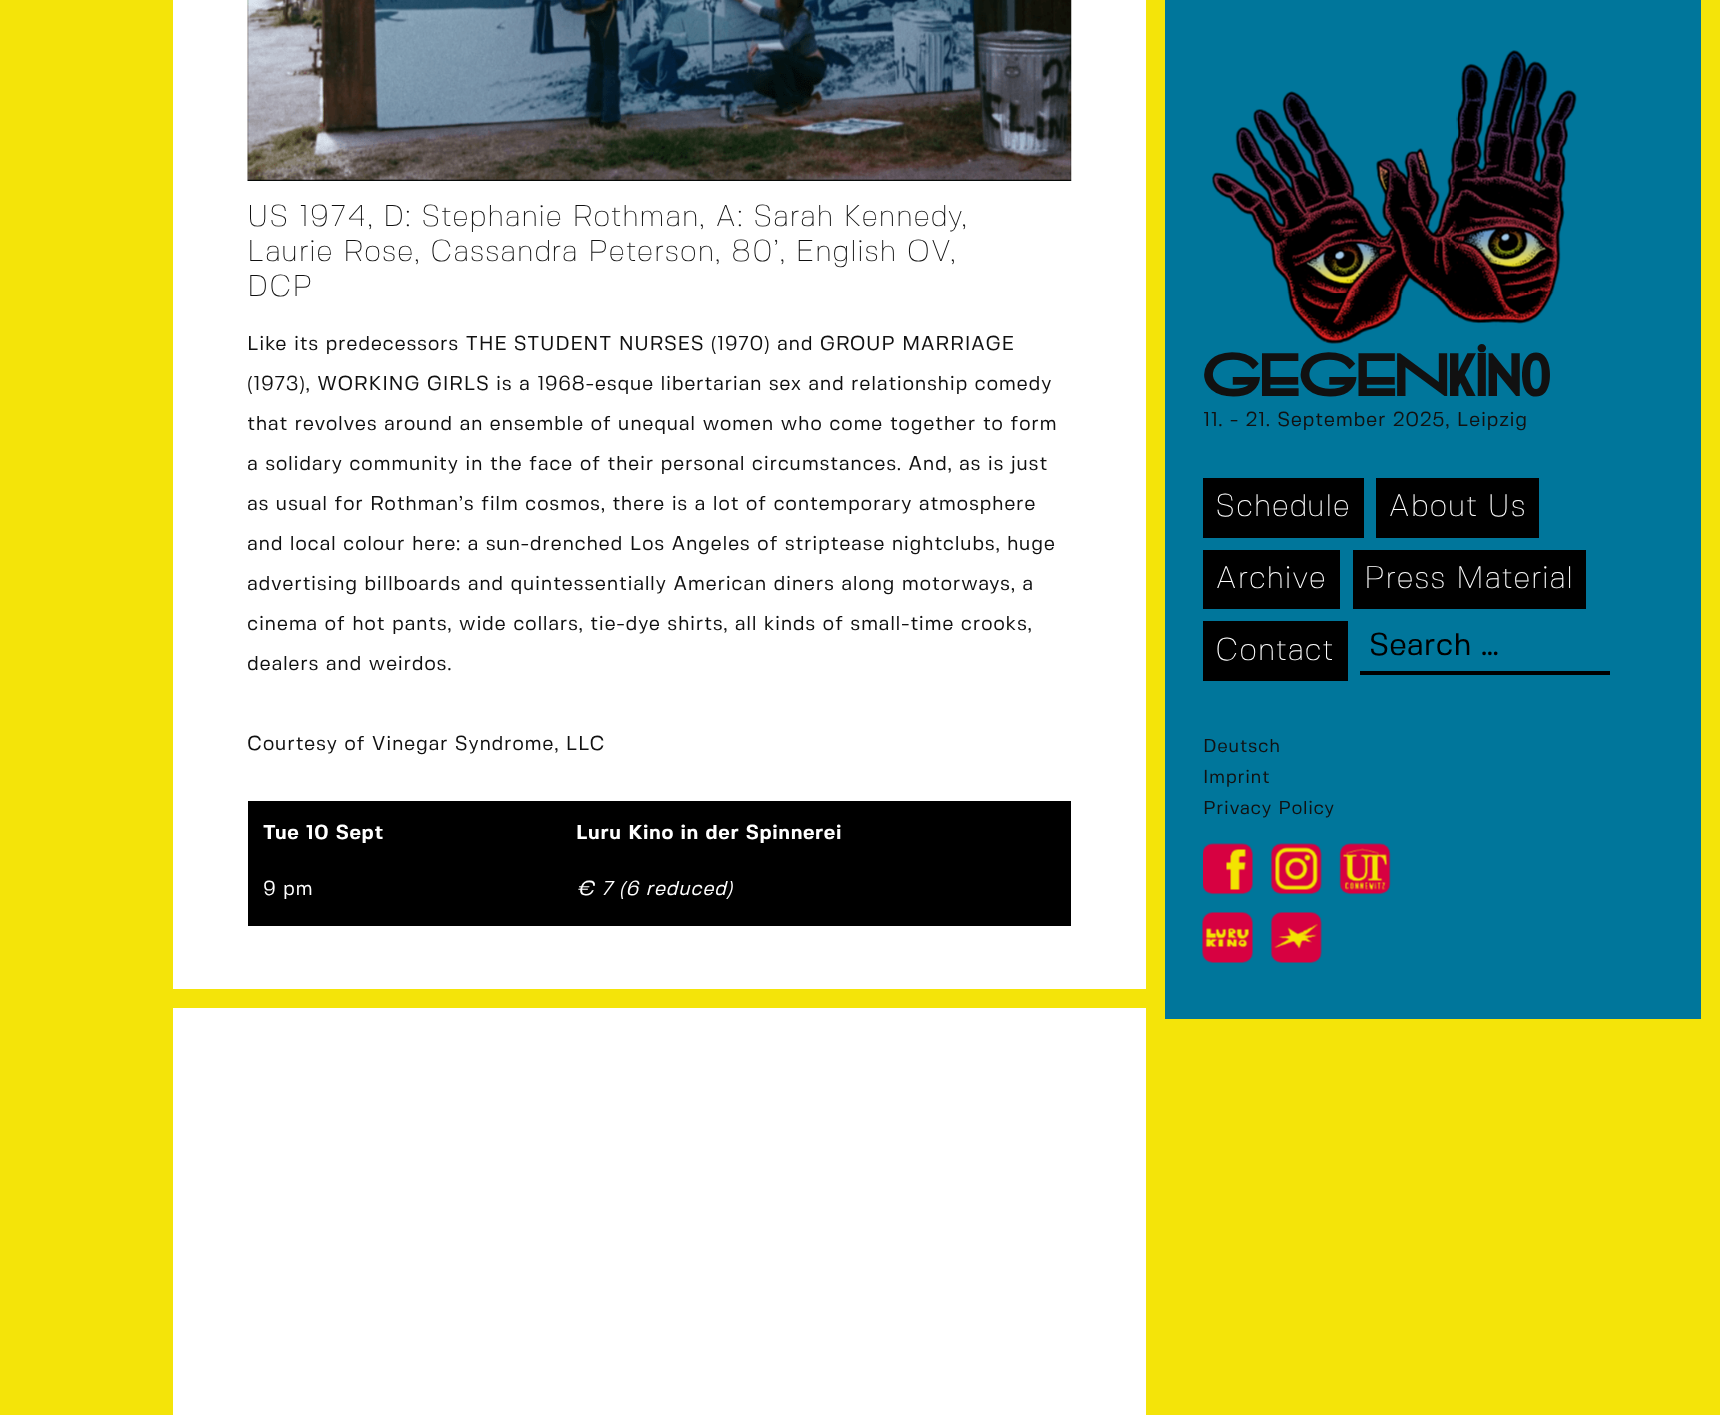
<?xml version="1.0" encoding="UTF-8"?>
<svg xmlns="http://www.w3.org/2000/svg" xmlns:xlink="http://www.w3.org/1999/xlink" width="1720" height="1415">
  <rect width="100%" height="100%" fill="#f4e409" />
  <rect x="173" width="973" height="1415" fill="#ffffff" />
  <image x="247" y="0" width="825" height="181" xlink:href="image1.png" />
  <rect x="248" y="801" width="823" height="125" fill="#000000" />
  <rect x="173" y="989" width="973" height="19" fill="#f4e409" />
  <rect x="1165" width="536" height="1019" fill="#00769b" />
  <image x="1212" y="50" width="365" height="294" xlink:href="image2.png" />
  <rect x="1203" y="478" width="161" height="60" fill="#000000" />
  <rect x="1376" y="478" width="163" height="60" fill="#000000" />
  <rect x="1203" y="550" width="137" height="59" fill="#000000" />
  <rect x="1353" y="550" width="233" height="59" fill="#000000" />
  <rect x="1203" y="621" width="145" height="60" fill="#000000" />
  <rect x="1360" y="671" width="250" height="4" fill="#000000" />
  <image x="1203" y="843" width="50" height="52" xlink:href="image3.png" />
  <image x="1270" y="843" width="52" height="52" xlink:href="image4.png" />
  <image x="1339" y="843" width="52" height="52" xlink:href="image5.png" />
  <image x="1202" y="912" width="51" height="51" xlink:href="image6.png" />
  <image x="1270" y="912" width="52" height="51" xlink:href="image7.png" />
  <text x="247" y="226" style="font-family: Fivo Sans; font-size: 30px; font-weight: 100; letter-spacing: 0.62px; fill: #111111">US 1974, D: Stephanie Rothman, A: Sarah Kennedy,</text>
  <text x="247" y="261" style="font-family: Fivo Sans; font-size: 30px; font-weight: 100; letter-spacing: 0.62px; fill: #111111">Laurie Rose, Cassandra Peterson, 80’, English OV,</text>
  <text x="247" y="296" style="font-family: Fivo Sans; font-size: 30px; font-weight: 100; letter-spacing: 0.62px; fill: #111111">DCP</text>
  <text x="247" y="350" style="font-family: Fivo Sans; font-size: 20px; letter-spacing: 0.62px; fill: #111111">Like its predecessors THE STUDENT NURSES (1970) and GROUP MARRIAGE</text>
  <text x="247" y="390" style="font-family: Fivo Sans; font-size: 20px; letter-spacing: 0.62px; fill: #111111">(1973), WORKING GIRLS is a 1968-esque libertarian sex and relationship comedy</text>
  <text x="247" y="430" style="font-family: Fivo Sans; font-size: 20px; letter-spacing: 0.62px; fill: #111111">that revolves around an ensemble of unequal women who come together to form</text>
  <text x="247" y="470" style="font-family: Fivo Sans; font-size: 20px; letter-spacing: 0.62px; fill: #111111">a solidary community in the face of their personal circumstances. And, as is just</text>
  <text x="247" y="510" style="font-family: Fivo Sans; font-size: 20px; letter-spacing: 0.62px; fill: #111111">as usual for Rothman’s film cosmos, there is a lot of contemporary atmosphere</text>
  <text x="247" y="550" style="font-family: Fivo Sans; font-size: 20px; letter-spacing: 0.62px; fill: #111111">and local colour here: a sun-drenched Los Angeles of striptease nightclubs, huge</text>
  <text x="247" y="590" style="font-family: Fivo Sans; font-size: 20px; letter-spacing: 0.62px; fill: #111111">advertising billboards and quintessentially American diners along motorways, a</text>
  <text x="247" y="630" style="font-family: Fivo Sans; font-size: 20px; letter-spacing: 0.62px; fill: #111111">cinema of hot pants, wide collars, tie-dye shirts, all kinds of small-time crooks,</text>
  <text x="247" y="670" style="font-family: Fivo Sans; font-size: 20px; letter-spacing: 0.62px; fill: #111111">dealers and weirdos.</text>
  <text x="247" y="750" style="font-family: Fivo Sans; font-size: 20px; letter-spacing: 0.62px; fill: #111111">Courtesy of Vinegar Syndrome, LLC</text>
  <text x="263" y="839" style="font-family: Fivo Sans; font-size: 20px; font-weight: bold; letter-spacing: 0.62px; fill: #ffffff">Tue 10 Sept</text>
  <text x="576" y="839" style="font-family: Fivo Sans; font-size: 20px; font-weight: bold; letter-spacing: 0.62px; fill: #ffffff">Luru Kino in der Spinnerei</text>
  <text x="263" y="895" style="font-family: Fivo Sans; font-size: 20px; letter-spacing: 0.62px; fill: #ffffff">9 pm</text>
  <text x="576" y="895" style="font-family: Fivo Sans; font-size: 20px; font-style: italic; letter-spacing: 0.62px; fill: #ffffff">€ 7 (6 reduced)</text>
  <text x="1203" y="396" style="font-family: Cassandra; font-size: 68.75px; font-weight: bold; letter-spacing: 0.62px; fill: #111111">GEGENkino</text>
  <text x="1203" y="426" style="font-family: Fivo Sans; font-size: 20px; letter-spacing: 0.62px; fill: #111111">11. - 21. September 2025, Leipzig</text>
  <text x="1215" y="516" style="font-family: Fivo Sans; font-size: 31.25px; font-weight: 100; letter-spacing: 0.62px; fill: #ffffff">Schedule</text>
  <text x="1388" y="516" style="font-family: Fivo Sans; font-size: 31.25px; font-weight: 100; letter-spacing: 0.62px; fill: #ffffff">About Us</text>
  <text x="1215" y="588" style="font-family: Fivo Sans; font-size: 31.25px; font-weight: 100; letter-spacing: 0.62px; fill: #ffffff">Archive</text>
  <text x="1364" y="588" style="font-family: Fivo Sans; font-size: 31.25px; font-weight: 100; letter-spacing: 0.62px; fill: #ffffff">Press Material</text>
  <text x="1215" y="660" style="font-family: Fivo Sans; font-size: 31.25px; font-weight: 100; letter-spacing: 0.62px; fill: #ffffff">Contact</text>
  <text x="1369" y="655" style="font-family: Fivo Sans; font-size: 31.25px; fill: #000000">Search …</text>
  <text x="1203" y="752" style="font-family: Fivo Sans; font-size: 18.75px; letter-spacing: 0.62px; fill: #111111">Deutsch</text>
  <text x="1203" y="783" style="font-family: Fivo Sans; font-size: 18.75px; letter-spacing: 0.62px; fill: #111111">Imprint</text>
  <text x="1203" y="814" style="font-family: Fivo Sans; font-size: 18.75px; letter-spacing: 0.62px; fill: #111111">Privacy Policy</text>
</svg>
